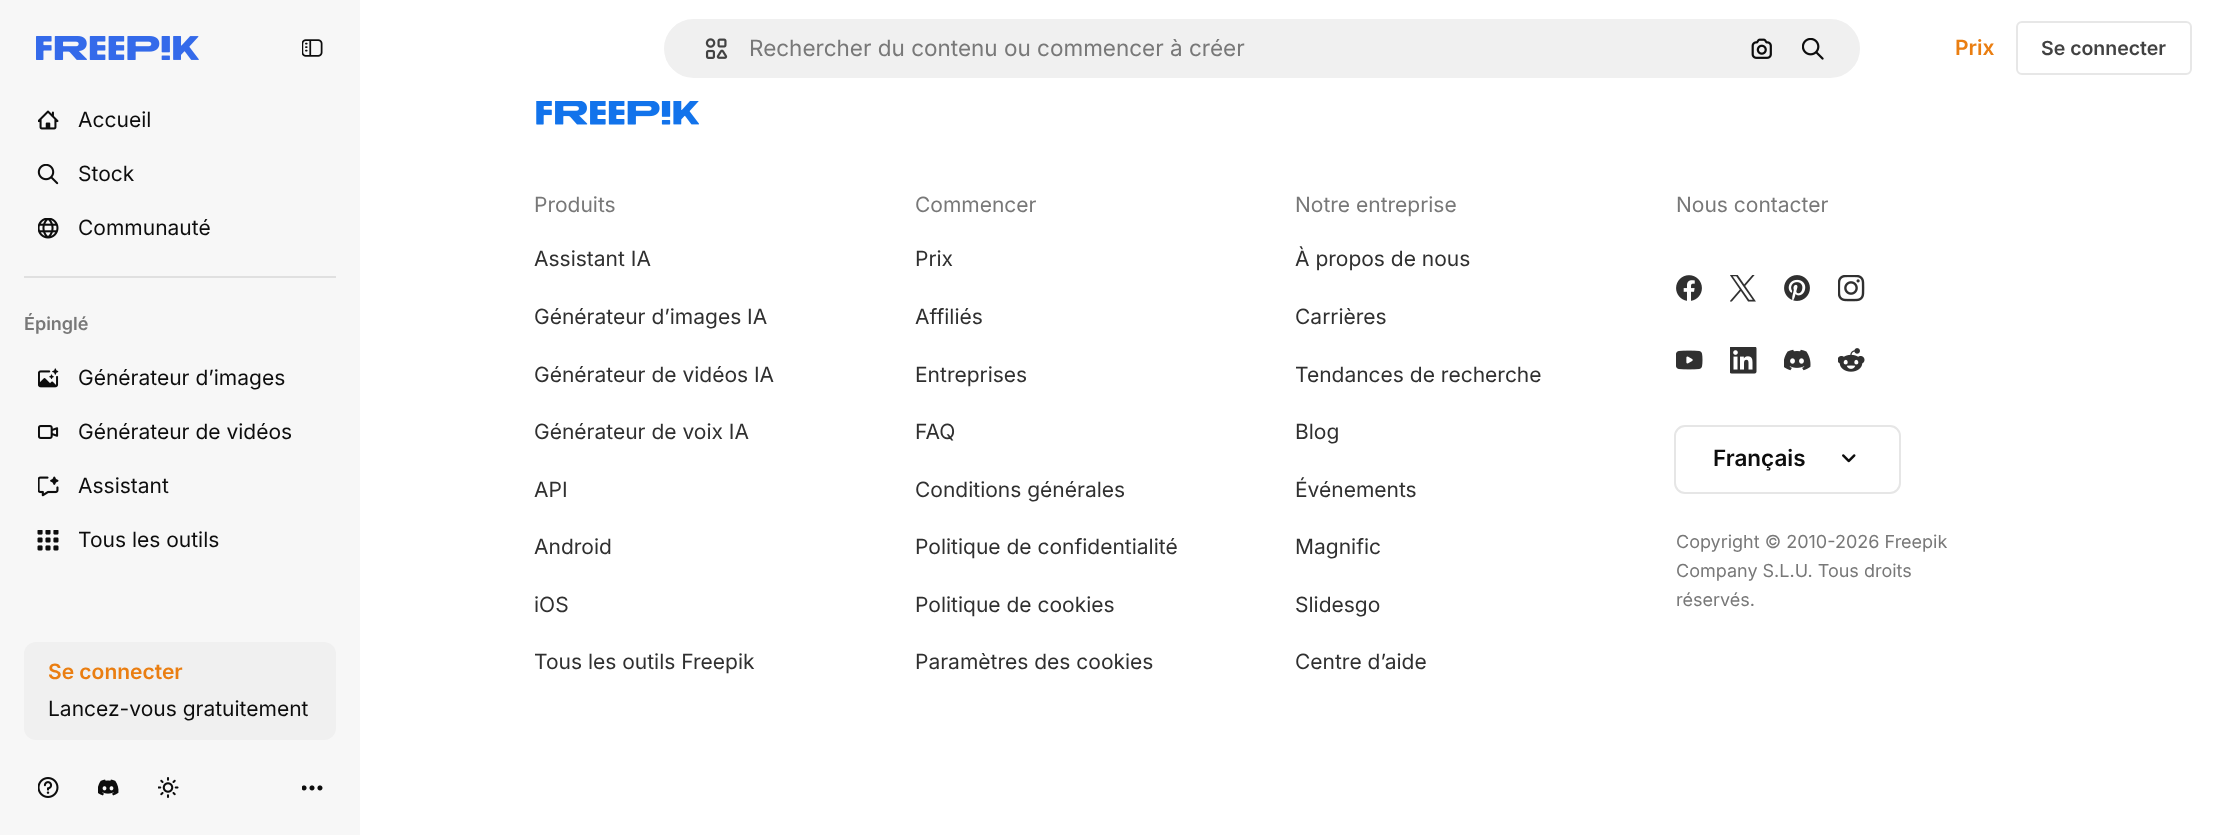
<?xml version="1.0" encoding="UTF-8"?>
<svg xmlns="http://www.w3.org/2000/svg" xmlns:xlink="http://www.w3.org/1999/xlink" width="2215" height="835">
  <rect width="100%" height="100%" fill="#ffffff" />
  <rect width="360" height="835" fill="#f7f7f7" />
  <image x="36" y="36" width="163" height="24" xlink:href="image1.png" />
  <image x="302" y="39" width="21" height="18" xlink:href="image2.png" />
  <image x="38" y="110" width="21" height="20" xlink:href="image3.png" />
  <image x="37" y="164" width="22" height="21" xlink:href="image4.png" />
  <image x="38" y="218" width="21" height="21" xlink:href="image5.png" />
  <rect x="24" y="276" width="312" height="2" fill="#e0e0e0" />
  <image x="38" y="368" width="21" height="20" xlink:href="image6.png" />
  <image x="38" y="425" width="21" height="14" xlink:href="image7.png" />
  <image x="38" y="476" width="21" height="21" xlink:href="image8.png" />
  <image x="37" y="530" width="22" height="21" xlink:href="image9.png" />
  <rect x="24" y="642" width="312" height="98" rx="12" fill="#f0f0f0" />
  <image x="38" y="777" width="21" height="21" xlink:href="image10.png" />
  <image x="98" y="779" width="21" height="17" xlink:href="image11.png" />
  <image x="158" y="777" width="21" height="21" xlink:href="image12.png" />
  <image x="302" y="785" width="21" height="6" xlink:href="image13.png" />
  <rect x="663" y="18" width="1198" height="61" rx="30.5" fill="#f0f0f0" stroke="#ffffff" stroke-width="2" />
  <image x="705" y="38" width="23" height="21" xlink:href="image14.png" />
  <image x="1751" y="38" width="21" height="21" xlink:href="image15.png" />
  <image x="1802" y="38" width="22" height="22" xlink:href="image16.png" />
  <rect x="2017" y="22" width="174" height="52" rx="5" fill="none" stroke="#e7e7e7" stroke-width="2" />
  <image x="536" y="101" width="163" height="24" xlink:href="image17.png" />
  <image x="1676" y="275" width="26" height="26" xlink:href="image18.png" />
  <image x="1730" y="275" width="26" height="27" xlink:href="image19.png" />
  <image x="1784" y="275" width="26" height="26" xlink:href="image20.png" />
  <image x="1838" y="275" width="27" height="27" xlink:href="image21.png" />
  <image x="1676" y="350" width="27" height="20" xlink:href="image22.png" />
  <image x="1730" y="347" width="27" height="27" xlink:href="image23.png" />
  <image x="1784" y="349" width="27" height="22" xlink:href="image24.png" />
  <image x="1838" y="348" width="27" height="24" xlink:href="image25.png" />
  <rect x="1675" y="426" width="225" height="67" rx="10" fill="none" stroke="#e6e6e6" stroke-width="2" />
  <image x="1842" y="454" width="14" height="9" xlink:href="image26.png" />
  <text x="78" y="127" style="font-family: Inter; font-size: 21px; fill: #0d0d0d">Accueil</text>
  <text x="78" y="181" style="font-family: Inter; font-size: 21px; fill: #0d0d0d">Stock</text>
  <text x="78" y="235" style="font-family: Inter; font-size: 21px; fill: #0d0d0d">Communauté</text>
  <text x="24" y="330" style="font-family: Inter; font-size: 18px; font-weight: 600; fill: #787878">Épinglé</text>
  <text x="78" y="385" style="font-family: Inter; font-size: 21px; fill: #0d0d0d">Générateur d’images</text>
  <text x="78" y="439" style="font-family: Inter; font-size: 21px; fill: #0d0d0d">Générateur de vidéos</text>
  <text x="78" y="493" style="font-family: Inter; font-size: 21px; fill: #0d0d0d">Assistant</text>
  <text x="78" y="547" style="font-family: Inter; font-size: 21px; fill: #0d0d0d">Tous les outils</text>
  <text x="48" y="679" style="font-family: Inter; font-size: 21px; font-weight: 600; fill: #ea7e11">Se connecter</text>
  <text x="48" y="716" style="font-family: Inter; font-size: 21px; fill: #0d0d0d">Lancez-vous gratuitement</text>
  <text x="749" y="56" style="font-family: Inter; font-size: 22.5px; fill: #787878">Rechercher du contenu ou commencer à créer</text>
  <text x="1955" y="55" style="font-family: Inter; font-size: 21px; font-weight: 600; fill: #ea7e11">Prix</text>
  <text x="2041" y="55" style="font-family: Inter; font-size: 19.5px; font-weight: 600; fill: #424242">Se connecter</text>
  <text x="534" y="212" style="font-family: Inter; font-size: 21px; fill: #787878">Produits</text>
  <text x="534" y="266" style="font-family: Inter; font-size: 21px; fill: #303030">Assistant IA</text>
  <text x="534" y="324" style="font-family: Inter; font-size: 21px; fill: #303030">Générateur d’images IA</text>
  <text x="534" y="382" style="font-family: Inter; font-size: 21px; fill: #303030">Générateur de vidéos IA</text>
  <text x="534" y="439" style="font-family: Inter; font-size: 21px; fill: #303030">Générateur de voix IA</text>
  <text x="534" y="497" style="font-family: Inter; font-size: 21px; fill: #303030">API</text>
  <text x="534" y="554" style="font-family: Inter; font-size: 21px; fill: #303030">Android</text>
  <text x="534" y="612" style="font-family: Inter; font-size: 21px; fill: #303030">iOS</text>
  <text x="534" y="669" style="font-family: Inter; font-size: 21px; fill: #303030">Tous les outils Freepik</text>
  <text x="915" y="212" style="font-family: Inter; font-size: 21px; fill: #787878">Commencer</text>
  <text x="915" y="266" style="font-family: Inter; font-size: 21px; fill: #303030">Prix</text>
  <text x="915" y="324" style="font-family: Inter; font-size: 21px; fill: #303030">Affiliés</text>
  <text x="915" y="382" style="font-family: Inter; font-size: 21px; fill: #303030">Entreprises</text>
  <text x="915" y="439" style="font-family: Inter; font-size: 21px; fill: #303030">FAQ</text>
  <text x="915" y="497" style="font-family: Inter; font-size: 21px; fill: #303030">Conditions générales</text>
  <text x="915" y="554" style="font-family: Inter; font-size: 21px; fill: #303030">Politique de confidentialité</text>
  <text x="915" y="612" style="font-family: Inter; font-size: 21px; fill: #303030">Politique de cookies</text>
  <text x="915" y="669" style="font-family: Inter; font-size: 21px; fill: #303030">Paramètres des cookies</text>
  <text x="1295" y="212" style="font-family: Inter; font-size: 21px; fill: #787878">Notre entreprise</text>
  <text x="1295" y="266" style="font-family: Inter; font-size: 21px; fill: #303030">À propos de nous</text>
  <text x="1295" y="324" style="font-family: Inter; font-size: 21px; fill: #303030">Carrières</text>
  <text x="1295" y="382" style="font-family: Inter; font-size: 21px; fill: #303030">Tendances de recherche</text>
  <text x="1295" y="439" style="font-family: Inter; font-size: 21px; fill: #303030">Blog</text>
  <text x="1295" y="497" style="font-family: Inter; font-size: 21px; fill: #303030">Événements</text>
  <text x="1295" y="554" style="font-family: Inter; font-size: 21px; fill: #303030">Magnific</text>
  <text x="1295" y="612" style="font-family: Inter; font-size: 21px; fill: #303030">Slidesgo</text>
  <text x="1295" y="669" style="font-family: Inter; font-size: 21px; fill: #303030">Centre d’aide</text>
  <text x="1676" y="212" style="font-family: Inter; font-size: 21px; fill: #787878">Nous contacter</text>
  <text x="1713" y="466" style="font-family: Inter; font-size: 22.5px; font-weight: 600; fill: #0d0d0d">Français</text>
  <text x="1676" y="548" style="font-family: Inter; font-size: 18px; fill: #787878">Copyright © 2010-</text>
  <text x="1835" y="548" style="font-family: Inter; font-size: 18px; fill: #787878">2026 Freepik</text>
  <text x="1676" y="577" style="font-family: Inter; font-size: 18px; fill: #787878">Company S.L.U. Tous droits</text>
  <text x="1676" y="606" style="font-family: Inter; font-size: 18px; fill: #787878">réservés.</text>
</svg>
